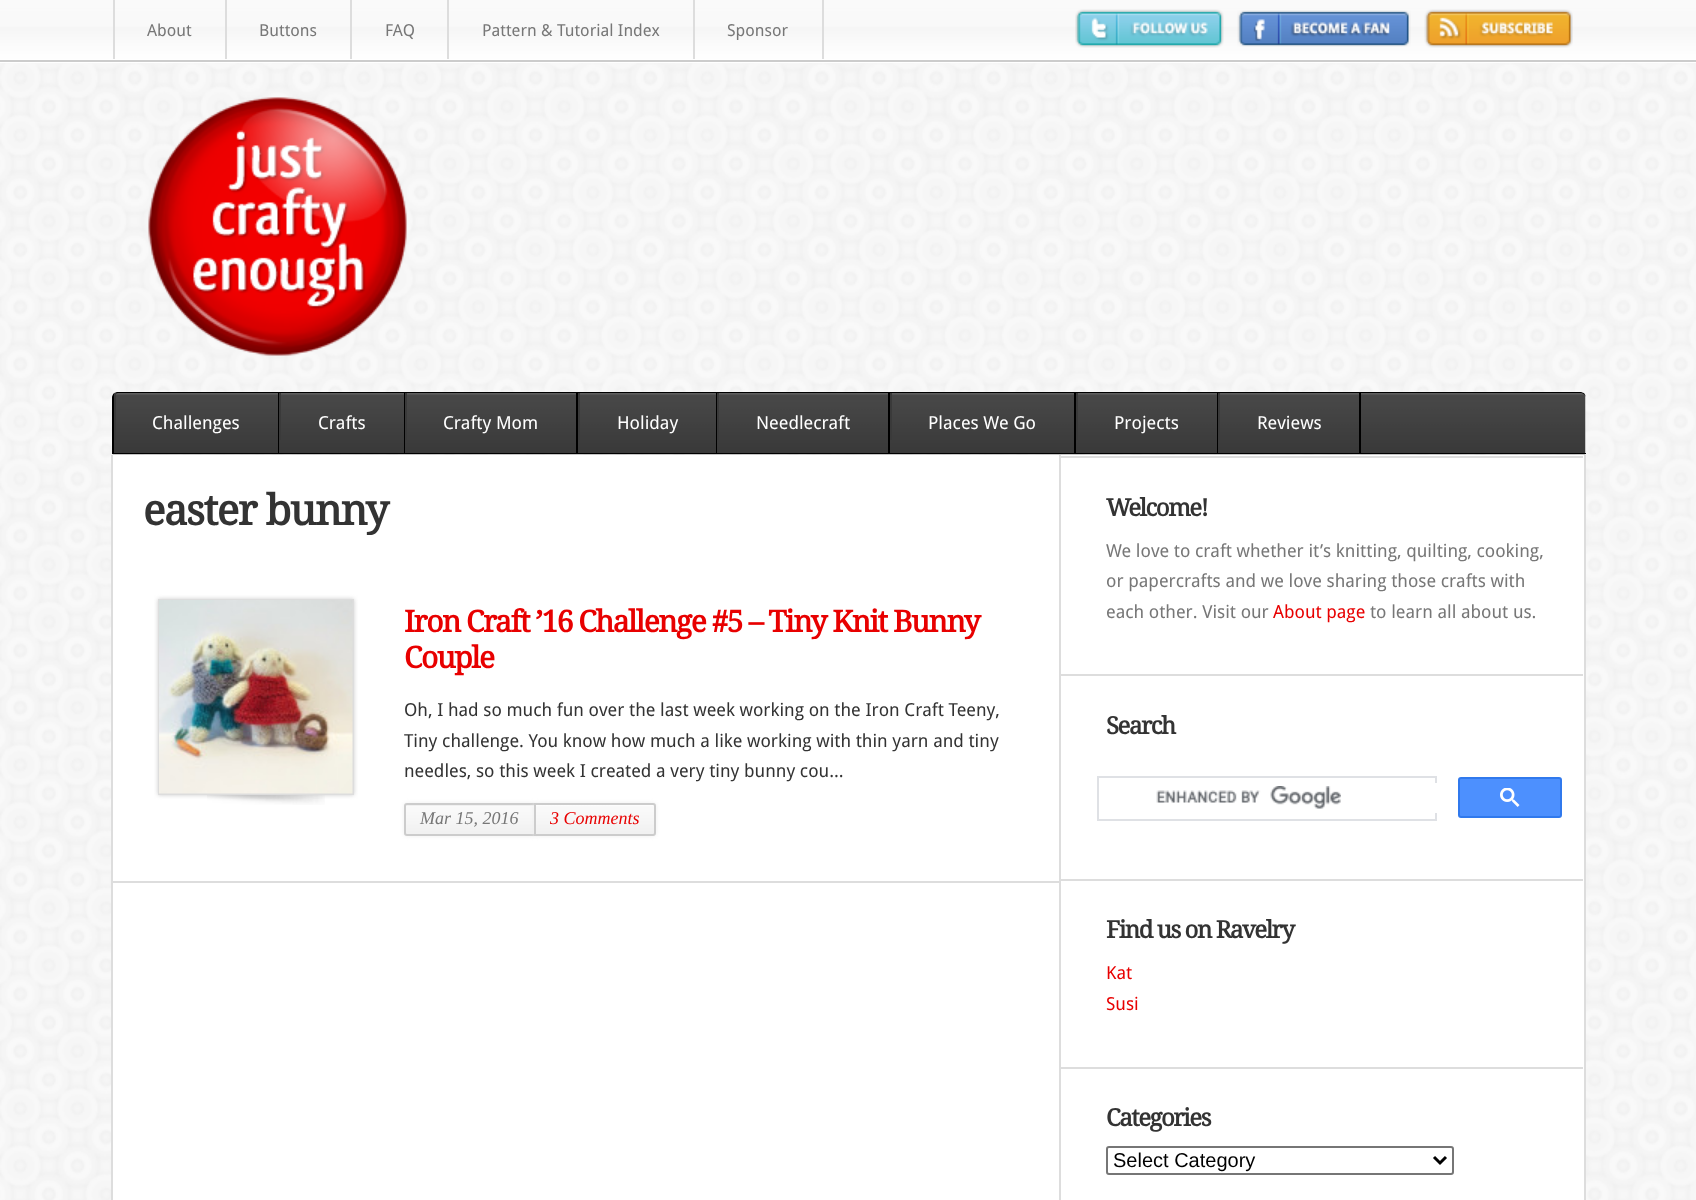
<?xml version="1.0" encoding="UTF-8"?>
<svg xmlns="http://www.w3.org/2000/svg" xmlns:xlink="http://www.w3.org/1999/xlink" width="1696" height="1200">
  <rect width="100%" height="100%" fill="#ffffff" />
  <image x="0" y="63" width="1696" height="1137" xlink:href="image1.png" />
  <image x="0" y="0" width="1696" height="60" xlink:href="image2.png" />
  <rect y="60" width="1696" height="2" fill="#cccccc" />
  <rect x="113" width="2" height="59" fill="#dddddd" />
  <rect x="225" width="2" height="59" fill="#dddddd" />
  <rect x="350" width="2" height="59" fill="#dddddd" />
  <rect x="447" width="2" height="59" fill="#dddddd" />
  <rect x="822" width="2" height="59" fill="#dddddd" />
  <rect x="693" width="2" height="59" fill="#dddddd" />
  <image x="1075" y="9" width="149" height="39" xlink:href="image3.png" />
  <image x="1237" y="10" width="174" height="37" xlink:href="image4.png" />
  <image x="1424" y="9" width="149" height="39" xlink:href="image5.png" />
  <image x="148" y="97" width="259" height="259" xlink:href="image6.png" />
  <image x="112" y="393" width="1474" height="62" xlink:href="image7.png" />
  <path d="M 118 392 h 1462 c 3 0 6 2 6 6 v 56 h -1474 v -56 c 0 -4 3 -6 6 -6 z m 0 1 h 1462 c 3 0 6 2 6 5 v 55 h -1472 v -55 c 0 -3 2 -5 4 -5 z" fill="#000000" fill-rule="evenodd" />
  <rect x="278" y="393" width="1" height="60" fill="#000000" />
  <rect x="114" y="393" width="2" height="47" fill="#3a3a3a" />
  <rect x="404" y="393" width="1" height="60" fill="#000000" />
  <rect x="279" y="393" width="2" height="47" fill="#3a3a3a" />
  <rect x="576" y="393" width="2" height="60" fill="#000000" />
  <rect x="405" y="393" width="2" height="47" fill="#3a3a3a" />
  <rect x="716" y="393" width="1" height="60" fill="#000000" />
  <rect x="578" y="393" width="2" height="47" fill="#3a3a3a" />
  <rect x="888" y="393" width="2" height="60" fill="#000000" />
  <rect x="717" y="393" width="2" height="47" fill="#3a3a3a" />
  <rect x="1074" y="393" width="2" height="60" fill="#000000" />
  <rect x="890" y="393" width="2" height="47" fill="#3a3a3a" />
  <rect x="1217" y="393" width="1" height="60" fill="#000000" />
  <rect x="1076" y="393" width="2" height="47" fill="#3a3a3a" />
  <rect x="1359" y="393" width="2" height="60" fill="#000000" />
  <rect x="1218" y="393" width="2" height="47" fill="#3a3a3a" />
  <rect x="113" y="455" width="1471" height="745" fill="#ffffff" />
  <rect x="1584" y="455" width="2" height="745" fill="#dddddd" />
  <rect x="111" y="455" width="2" height="745" fill="#dddddd" />
  <rect x="1059" y="455" width="2" height="745" fill="#dddddd" />
  <rect x="113" y="881" width="946" height="2" fill="#dddddd" />
  <image x="207" y="795" width="118" height="10" xlink:href="image8.png" />
  <rect x="158" y="599" width="196" height="196" fill="#cccccc" filter="blur(2px)" />
  <rect x="159" y="600" width="194" height="194" fill="none" stroke="#dddddd" stroke-width="2" />
  <image x="159" y="600" width="194" height="194" xlink:href="image9.png" />
  <rect x="404" y="803" width="132" height="33" rx="3" fill="#eeeeee" filter="blur(2px)" />
  <image x="404" y="806" width="130" height="29" xlink:href="image10.png" />
  <path d="M 407 804 h 128 v 31 h -128 c -1 0 -2 -1 -2 -2 v -27 c 0 -1 1 -2 2 -2 z" fill="none" stroke="#cccccc" stroke-width="2" />
  <rect x="534" y="803" width="122" height="33" rx="3" fill="#eeeeee" filter="blur(2px)" />
  <image x="536" y="805" width="118" height="31" xlink:href="image11.png" />
  <path d="M 535 804 h 118 c 1 0 2 1 2 2 v 27 c 0 1 -1 2 -2 2 h -118 z" fill="none" stroke="#cccccc" stroke-width="2" />
  <rect x="1061" y="456" width="522" height="2" fill="#dddddd" />
  <rect x="1061" y="674" width="522" height="2" fill="#dddddd" />
  <rect x="1098" y="777" width="338" height="43" fill="none" stroke="#dfe1e5" stroke-width="2" />
  <rect x="1435" y="783" width="2" height="30" fill="#ffffff" />
  <image x="1156" y="786" width="185" height="23" xlink:href="image12.png" />
  <rect x="1459" y="778" width="102" height="39" rx="2" fill="#4d90fe" stroke="#3079ed" stroke-width="2" />
  <image x="1500" y="788" width="20" height="19" xlink:href="image13.png" />
  <rect x="1061" y="879" width="522" height="2" fill="#dddddd" />
  <rect x="1061" y="1067" width="522" height="2" fill="#dddddd" />
  <rect x="1107" y="1147" width="346" height="27" rx="2" fill="none" stroke="#767676" stroke-width="2" />
  <path d="M 1434 1157 l 6 6 l 6 -6" fill="none" stroke="#000000" stroke-width="3" />
  <text x="147" y="36" style="font-family: Droid Sans; font-size: 16.5px; fill: #777777">About</text>
  <text x="259" y="36" style="font-family: Droid Sans; font-size: 16.5px; fill: #777777">Buttons</text>
  <text x="385" y="36" style="font-family: Droid Sans; font-size: 16.5px; fill: #777777">FAQ</text>
  <text x="482" y="36" style="font-family: Droid Sans; font-size: 16.5px; fill: #777777">Pattern &amp; Tutorial Index</text>
  <text x="727" y="36" style="font-family: Droid Sans; font-size: 16.5px; fill: #777777">Sponsor</text>
  <text x="152" y="429" style="font-family: Droid Sans; font-size: 18px; fill: #ffffff">Challenges</text>
  <text x="318" y="429" style="font-family: Droid Sans; font-size: 18px; fill: #ffffff">Crafts</text>
  <text x="443" y="429" style="font-family: Droid Sans; font-size: 18px; fill: #ffffff">Crafty Mom</text>
  <text x="617" y="429" style="font-family: Droid Sans; font-size: 18px; fill: #ffffff">Holiday</text>
  <text x="756" y="429" style="font-family: Droid Sans; font-size: 18px; fill: #ffffff">Needlecraft</text>
  <text x="928" y="429" style="font-family: Droid Sans; font-size: 18px; fill: #ffffff">Places We Go</text>
  <text x="1114" y="429" style="font-family: Droid Sans; font-size: 18px; fill: #ffffff">Projects</text>
  <text x="1257" y="429" style="font-family: Droid Sans; font-size: 18px; fill: #ffffff">Reviews</text>
  <text x="143" y="525" style="font-family: Droid Serif; font-size: 42px; font-weight: bold; letter-spacing: -1.5px; fill: #333333">easter bunny</text>
  <text x="404" y="632" style="font-family: Droid Serif; font-size: 30px; font-weight: bold; letter-spacing: -1.5px; fill: #e80000">Iron Craft ’16 Challenge #5 – Tiny Knit Bunny</text>
  <text x="404" y="668" style="font-family: Droid Serif; font-size: 30px; font-weight: bold; letter-spacing: -1.5px; fill: #e80000">Couple</text>
  <text x="404" y="716" style="font-family: Droid Sans; font-size: 18px; fill: #333333">Oh, I had so much fun over the last week working on the Iron Craft Teeny,</text>
  <text x="404" y="747" style="font-family: Droid Sans; font-size: 18px; fill: #333333">Tiny challenge. You know how much a like working with thin yarn and tiny</text>
  <text x="404" y="777" style="font-family: Droid Sans; font-size: 18px; fill: #333333">needles, so this week I created a very tiny bunny cou...</text>
  <text x="420" y="824" style="font-family: Liberation Serif; font-size: 18px; font-style: italic; fill: #777777">Mar 15, 2016</text>
  <text x="550" y="824" style="font-family: Liberation Serif; font-size: 18px; font-style: italic; fill: #e80000">3 Comments</text>
  <text x="1106" y="516" style="font-family: Droid Serif; font-size: 24px; font-weight: bold; letter-spacing: -1.5px; fill: #333333">Welcome!</text>
  <text x="1106" y="557" style="font-family: Droid Sans; font-size: 18px; fill: #777777">We love to craft whether it’s knitting, quilting, cooking,</text>
  <text x="1106" y="587" style="font-family: Droid Sans; font-size: 18px; fill: #777777">or papercrafts and we love sharing those crafts with</text>
  <text x="1106" y="618" style="font-family: Droid Sans; font-size: 18px; fill: #777777">each other. Visit our</text>
  <text x="1273" y="618" style="font-family: Droid Sans; font-size: 18px; fill: #e80000">About page</text>
  <text x="1370" y="618" style="font-family: Droid Sans; font-size: 18px; fill: #777777">to learn all about us.</text>
  <text x="1106" y="734" style="font-family: Droid Serif; font-size: 24px; font-weight: bold; letter-spacing: -1.5px; fill: #333333">Search</text>
  <text x="1106" y="938" style="font-family: Droid Serif; font-size: 24px; font-weight: bold; letter-spacing: -1.5px; fill: #333333">Find us on Ravelry</text>
  <text x="1106" y="979" style="font-family: Droid Sans; font-size: 18px; fill: #e80000">Kat</text>
  <text x="1106" y="1010" style="font-family: Droid Sans; font-size: 18px; fill: #e80000">Susi</text>
  <text x="1106" y="1126" style="font-family: Droid Serif; font-size: 24px; font-weight: bold; letter-spacing: -1.5px; fill: #333333">Categories</text>
  <text x="1113" y="1167" style="font-family: Liberation Sans; font-size: 20px; fill: #000000">Select Category</text>
</svg>
